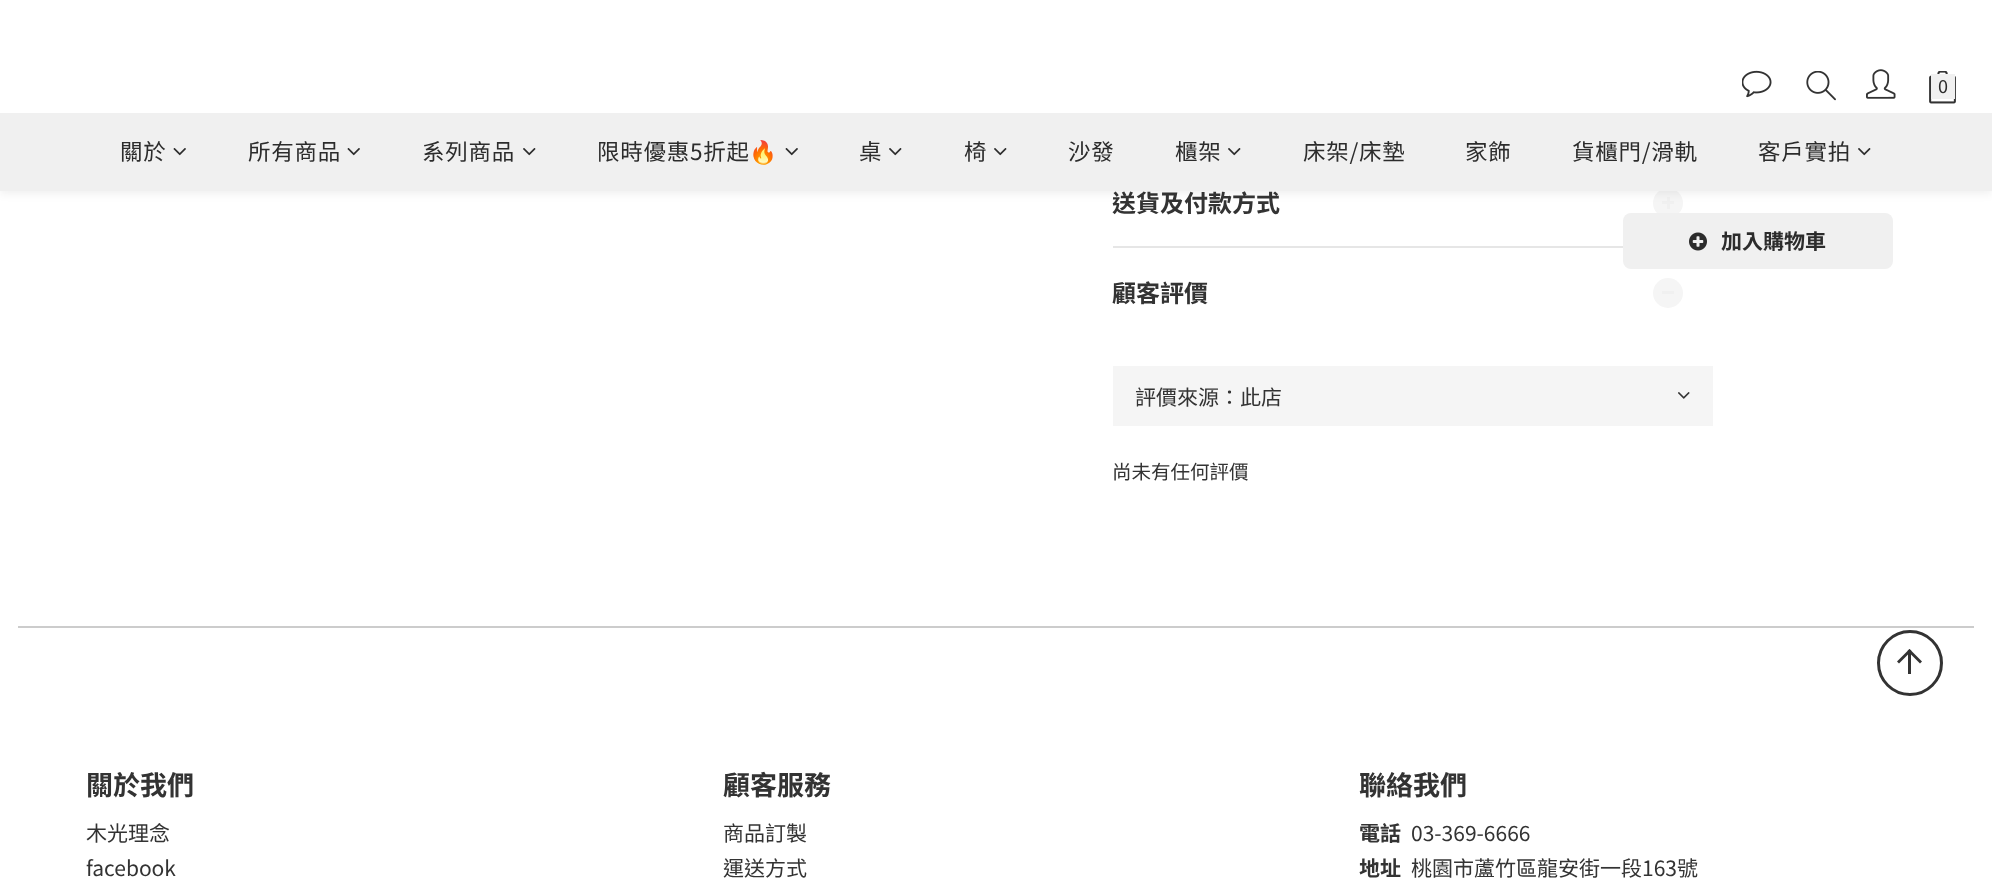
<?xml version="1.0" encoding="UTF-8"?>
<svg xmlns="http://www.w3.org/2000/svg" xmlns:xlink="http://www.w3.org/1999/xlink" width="1992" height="890">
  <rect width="100%" height="100%" fill="#ffffff" />
  <circle cx="1668" cy="203" r="15" fill="#f5f5f5" />
  <rect x="1662" y="201" width="12" height="3" fill="#f0f0f0" />
  <rect x="1667" y="197" width="3" height="12" fill="#f0f0f0" />
  <rect y="3" width="1992" height="191" fill="#000000" fill-opacity="0.06" filter="blur(4.5px)" />
  <rect width="1992" height="113" fill="#ffffff" />
  <image x="1742" y="70" width="30" height="28" xlink:href="image1.png" />
  <image x="1806" y="71" width="30" height="30" xlink:href="image2.png" />
  <image x="1866" y="69" width="30" height="30" xlink:href="image3.png" />
  <image x="1929" y="71" width="27" height="33" xlink:href="image4.png" />
  <rect x="1931" y="74" width="24" height="25" fill="#f0f0f0" />
  <rect y="113" width="1992" height="78" fill="#f0f0f0" />
  <image x="173" y="148" width="13" height="8" xlink:href="image5.png" />
  <image x="347" y="148" width="13" height="8" xlink:href="image5.png" />
  <image x="523" y="148" width="13" height="8" xlink:href="image6.png" />
  <image x="785" y="148" width="13" height="8" xlink:href="image5.png" />
  <image x="889" y="148" width="13" height="8" xlink:href="image6.png" />
  <image x="994" y="148" width="13" height="8" xlink:href="image6.png" />
  <image x="1228" y="148" width="13" height="8" xlink:href="image6.png" />
  <image x="1858" y="148" width="13" height="8" xlink:href="image6.png" />
  <rect x="1113" y="246" width="510" height="2" fill="#e6e6e6" />
  <circle cx="1668" cy="293" r="15" fill="#f5f5f5" />
  <rect x="1662" y="291" width="12" height="3" fill="#f0f0f0" />
  <rect x="1113" y="366" width="600" height="60" fill="#f5f5f5" />
  <image x="1678" y="392" width="12" height="7" xlink:href="image7.png" />
  <rect x="1623" y="213" width="270" height="56" rx="8" fill="#f0f0f0" />
  <image x="1689" y="232" width="18" height="19" xlink:href="image8.png" />
  <circle cx="1910" cy="663" r="31.5" fill="none" stroke="#333333" stroke-width="3" />
  <path d="M 1909.5 649 l 12.5 12.5 l -2 2 l -12.5 -12.5 z" fill="#333333" />
  <path d="M 1909.5 649 l 2 2 l -12.5 12.5 l -2 -2 z" fill="#333333" />
  <rect x="1908" y="653" width="3" height="21" fill="#333333" />
  <rect x="18" y="626" width="1956" height="2" fill="#cccccc" />
  <text x="1938" y="93" style="font-family: Noto Sans TC; font-size: 18px; fill: #2c2c2c">0</text>
  <text x="120" y="160" style="font-family: Noto Sans TC; font-size: 22.5px; letter-spacing: 0.75px; fill: #2c2c2c">關於</text>
  <text x="248" y="160" style="font-family: Noto Sans TC; font-size: 22.5px; letter-spacing: 0.75px; fill: #2c2c2c">所有商品</text>
  <text x="422" y="160" style="font-family: Noto Sans TC; font-size: 22.5px; letter-spacing: 0.75px; fill: #2c2c2c">系列商品</text>
  <text x="597" y="160" style="font-family: Noto Sans TC; font-size: 22.5px; letter-spacing: 0.75px; fill: #2c2c2c">限時優惠5折起</text>
  <text x="749" y="160" style="font-family: Noto Color Emoji; font-size: 22.5px; letter-spacing: 0.75px; fill: #2c2c2c">🔥</text>
  <text x="859" y="160" style="font-family: Noto Sans TC; font-size: 22.5px; letter-spacing: 0.75px; fill: #2c2c2c">桌</text>
  <text x="964" y="160" style="font-family: Noto Sans TC; font-size: 22.5px; letter-spacing: 0.75px; fill: #2c2c2c">椅</text>
  <text x="1068" y="160" style="font-family: Noto Sans TC; font-size: 22.5px; letter-spacing: 0.75px; fill: #2c2c2c">沙發</text>
  <text x="1175" y="160" style="font-family: Noto Sans TC; font-size: 22.5px; letter-spacing: 0.75px; fill: #2c2c2c">櫃架</text>
  <text x="1303" y="160" style="font-family: Noto Sans TC; font-size: 22.5px; letter-spacing: 0.75px; fill: #2c2c2c">床架/床墊</text>
  <text x="1465" y="160" style="font-family: Noto Sans TC; font-size: 22.5px; letter-spacing: 0.75px; fill: #2c2c2c">家飾</text>
  <text x="1572" y="160" style="font-family: Noto Sans TC; font-size: 22.5px; letter-spacing: 0.75px; fill: #2c2c2c">貨櫃門/滑軌</text>
  <text x="1758" y="160" style="font-family: Noto Sans TC; font-size: 22.5px; letter-spacing: 0.75px; fill: #2c2c2c">客戶實拍</text>
  <text x="1112" y="212" style="font-family: Noto Sans TC; font-size: 24px; font-weight: bold; fill: #333333">送貨及付款方式</text>
  <text x="1112" y="302" style="font-family: Noto Sans TC; font-size: 24px; font-weight: bold; fill: #333333">顧客評價</text>
  <text x="1135" y="405" style="font-family: Noto Sans TC; font-size: 21px; fill: #333333">評價來源：此店</text>
  <text x="1112" y="479" style="font-family: Noto Sans TC; font-size: 19.5px; fill: #333333">尚未有任何評價</text>
  <text x="1721" y="249" style="font-family: Noto Sans TC; font-size: 21px; font-weight: bold; fill: #2c2c2c">加入購物車</text>
  <text x="86" y="795" style="font-family: Noto Sans TC; font-size: 27px; font-weight: bold; fill: #333333">關於我們</text>
  <text x="86" y="841" style="font-family: Noto Sans TC; font-size: 21px; fill: #333333">木光理念</text>
  <text x="86" y="876" style="font-family: Noto Sans TC; font-size: 21px; fill: #333333">facebook</text>
  <text x="723" y="795" style="font-family: Noto Sans TC; font-size: 27px; font-weight: bold; fill: #333333">顧客服務</text>
  <text x="723" y="841" style="font-family: Noto Sans TC; font-size: 21px; fill: #333333">商品訂製</text>
  <text x="723" y="876" style="font-family: Noto Sans TC; font-size: 21px; fill: #333333">運送方式</text>
  <text x="1359" y="795" style="font-family: Noto Sans TC; font-size: 27px; font-weight: bold; fill: #333333">聯絡我們</text>
  <text x="1359" y="841" style="font-family: Noto Sans TC; font-size: 21px; font-weight: bold; fill: #333333">電話</text>
  <text x="1411" y="841" style="font-family: Noto Sans TC; font-size: 21px; fill: #333333">03-369-6666</text>
  <text x="1359" y="876" style="font-family: Noto Sans TC; font-size: 21px; font-weight: bold; fill: #333333">地址</text>
  <text x="1411" y="876" style="font-family: Noto Sans TC; font-size: 21px; fill: #333333">桃園市蘆竹區龍安街一段163號</text>
</svg>
